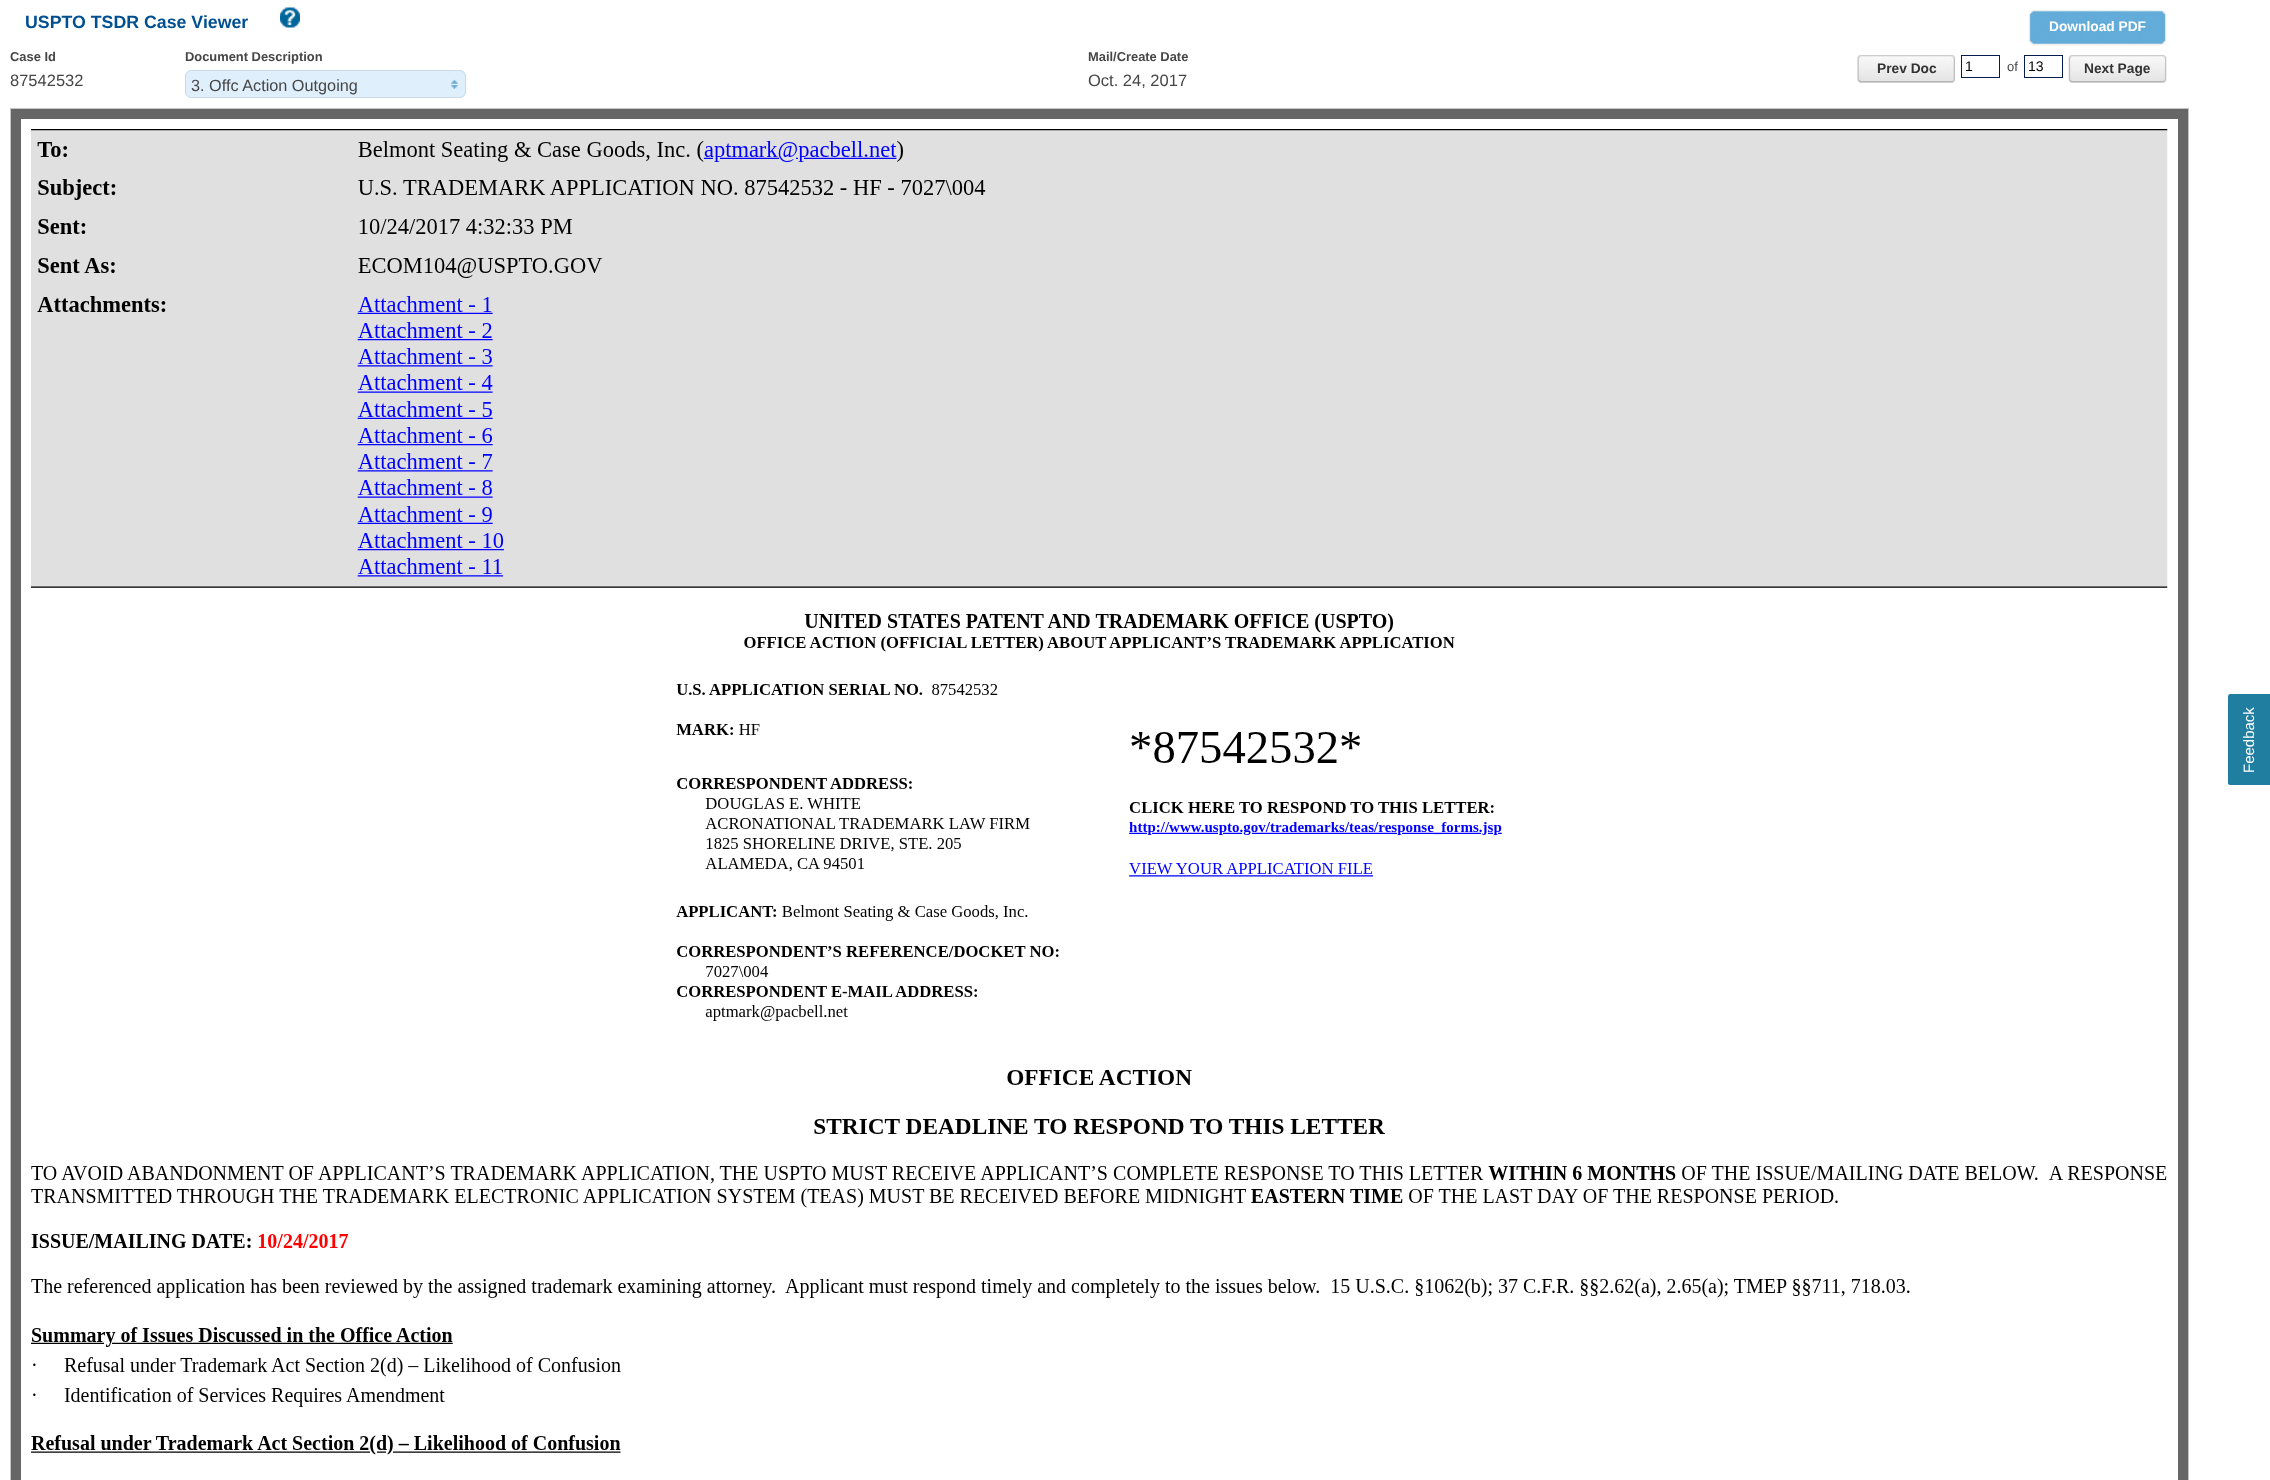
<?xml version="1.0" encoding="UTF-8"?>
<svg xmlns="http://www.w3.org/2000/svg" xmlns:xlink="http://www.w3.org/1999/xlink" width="2270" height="1480">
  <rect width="100%" height="100%" fill="#ffffff" />
  <image x="280" y="7" width="20" height="21" xlink:href="image1.png" />
  <image x="2028" y="10" width="139" height="36" xlink:href="image2.png" />
  <rect x="185.5" y="70.5" width="280" height="27" rx="5.5" fill="#dfeffc" stroke="#c5dbec" />
  <image x="451" y="79" width="7" height="10" xlink:href="image3.png" />
  <image x="1857" y="55" width="98" height="28" xlink:href="image4.png" />
  <rect x="1961.5" y="55.5" width="38" height="22" fill="none" stroke="#031d4e" />
  <rect x="2024.5" y="55.5" width="38" height="22" fill="none" stroke="#031d4e" />
  <image x="2068" y="55" width="99" height="28" xlink:href="image5.png" />
  <rect x="10.5" y="108.5" width="2178" height="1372" fill="#666666" stroke="#c4c4c4" />
  <rect x="21" y="119" width="2157" height="1361" fill="#ffffff" />
  <image x="31" y="129" width="2137" height="1326" xlink:href="image6.png" />
  <path d="M 2270 785 h -40 c -1 0 -2 -1 -2 -2 v -86 c 0 -2 1 -3 2 -3 h 40 z" fill="#207ea0" />
  <text x="25" y="28" style="font-family: Liberation Sans; font-size: 17.75px; font-weight: bold; fill: #005091">USPTO TSDR Case Viewer</text>
  <text x="2049" y="31" style="font-family: Liberation Sans; font-size: 13.75px; font-weight: bold; fill: #ffffff">Download PDF</text>
  <text x="10" y="61" style="font-family: Liberation Sans; font-size: 12.9px; font-weight: bold; fill: #464646">Case Id</text>
  <text x="10" y="86" style="font-family: Liberation Sans; font-size: 16.5px; fill: #464646">87542532</text>
  <text x="185" y="61" style="font-family: Liberation Sans; font-size: 12.9px; font-weight: bold; fill: #464646">Document Description</text>
  <text x="191" y="91" style="font-family: Liberation Sans; font-size: 16.25px; fill: #464646">3. Offc Action Outgoing</text>
  <text x="1088" y="61" style="font-family: Liberation Sans; font-size: 12.9px; font-weight: bold; fill: #464646">Mail/Create Date</text>
  <text x="1088" y="86" style="font-family: Liberation Sans; font-size: 16.5px; fill: #464646">Oct. 24, 2017</text>
  <text x="1877" y="73" style="font-family: Liberation Sans; font-size: 13.75px; font-weight: bold; fill: #333333">Prev Doc</text>
  <text x="1965" y="71" style="font-family: Liberation Sans; font-size: 14px; fill: #000000">1</text>
  <text x="2007" y="71" style="font-family: Liberation Sans; font-size: 13px; fill: #464646">of</text>
  <text x="2028" y="71" style="font-family: Liberation Sans; font-size: 14px; fill: #000000">13</text>
  <text x="2084" y="73" style="font-family: Liberation Sans; font-size: 13.75px; font-weight: bold; fill: #333333">Next Page</text>
  <text x="2254" y="773" transform="rotate(-90 2254 773)" style="font-family: Liberation Sans; font-size: 15px; fill: #ffffff">Feedback</text>
</svg>
